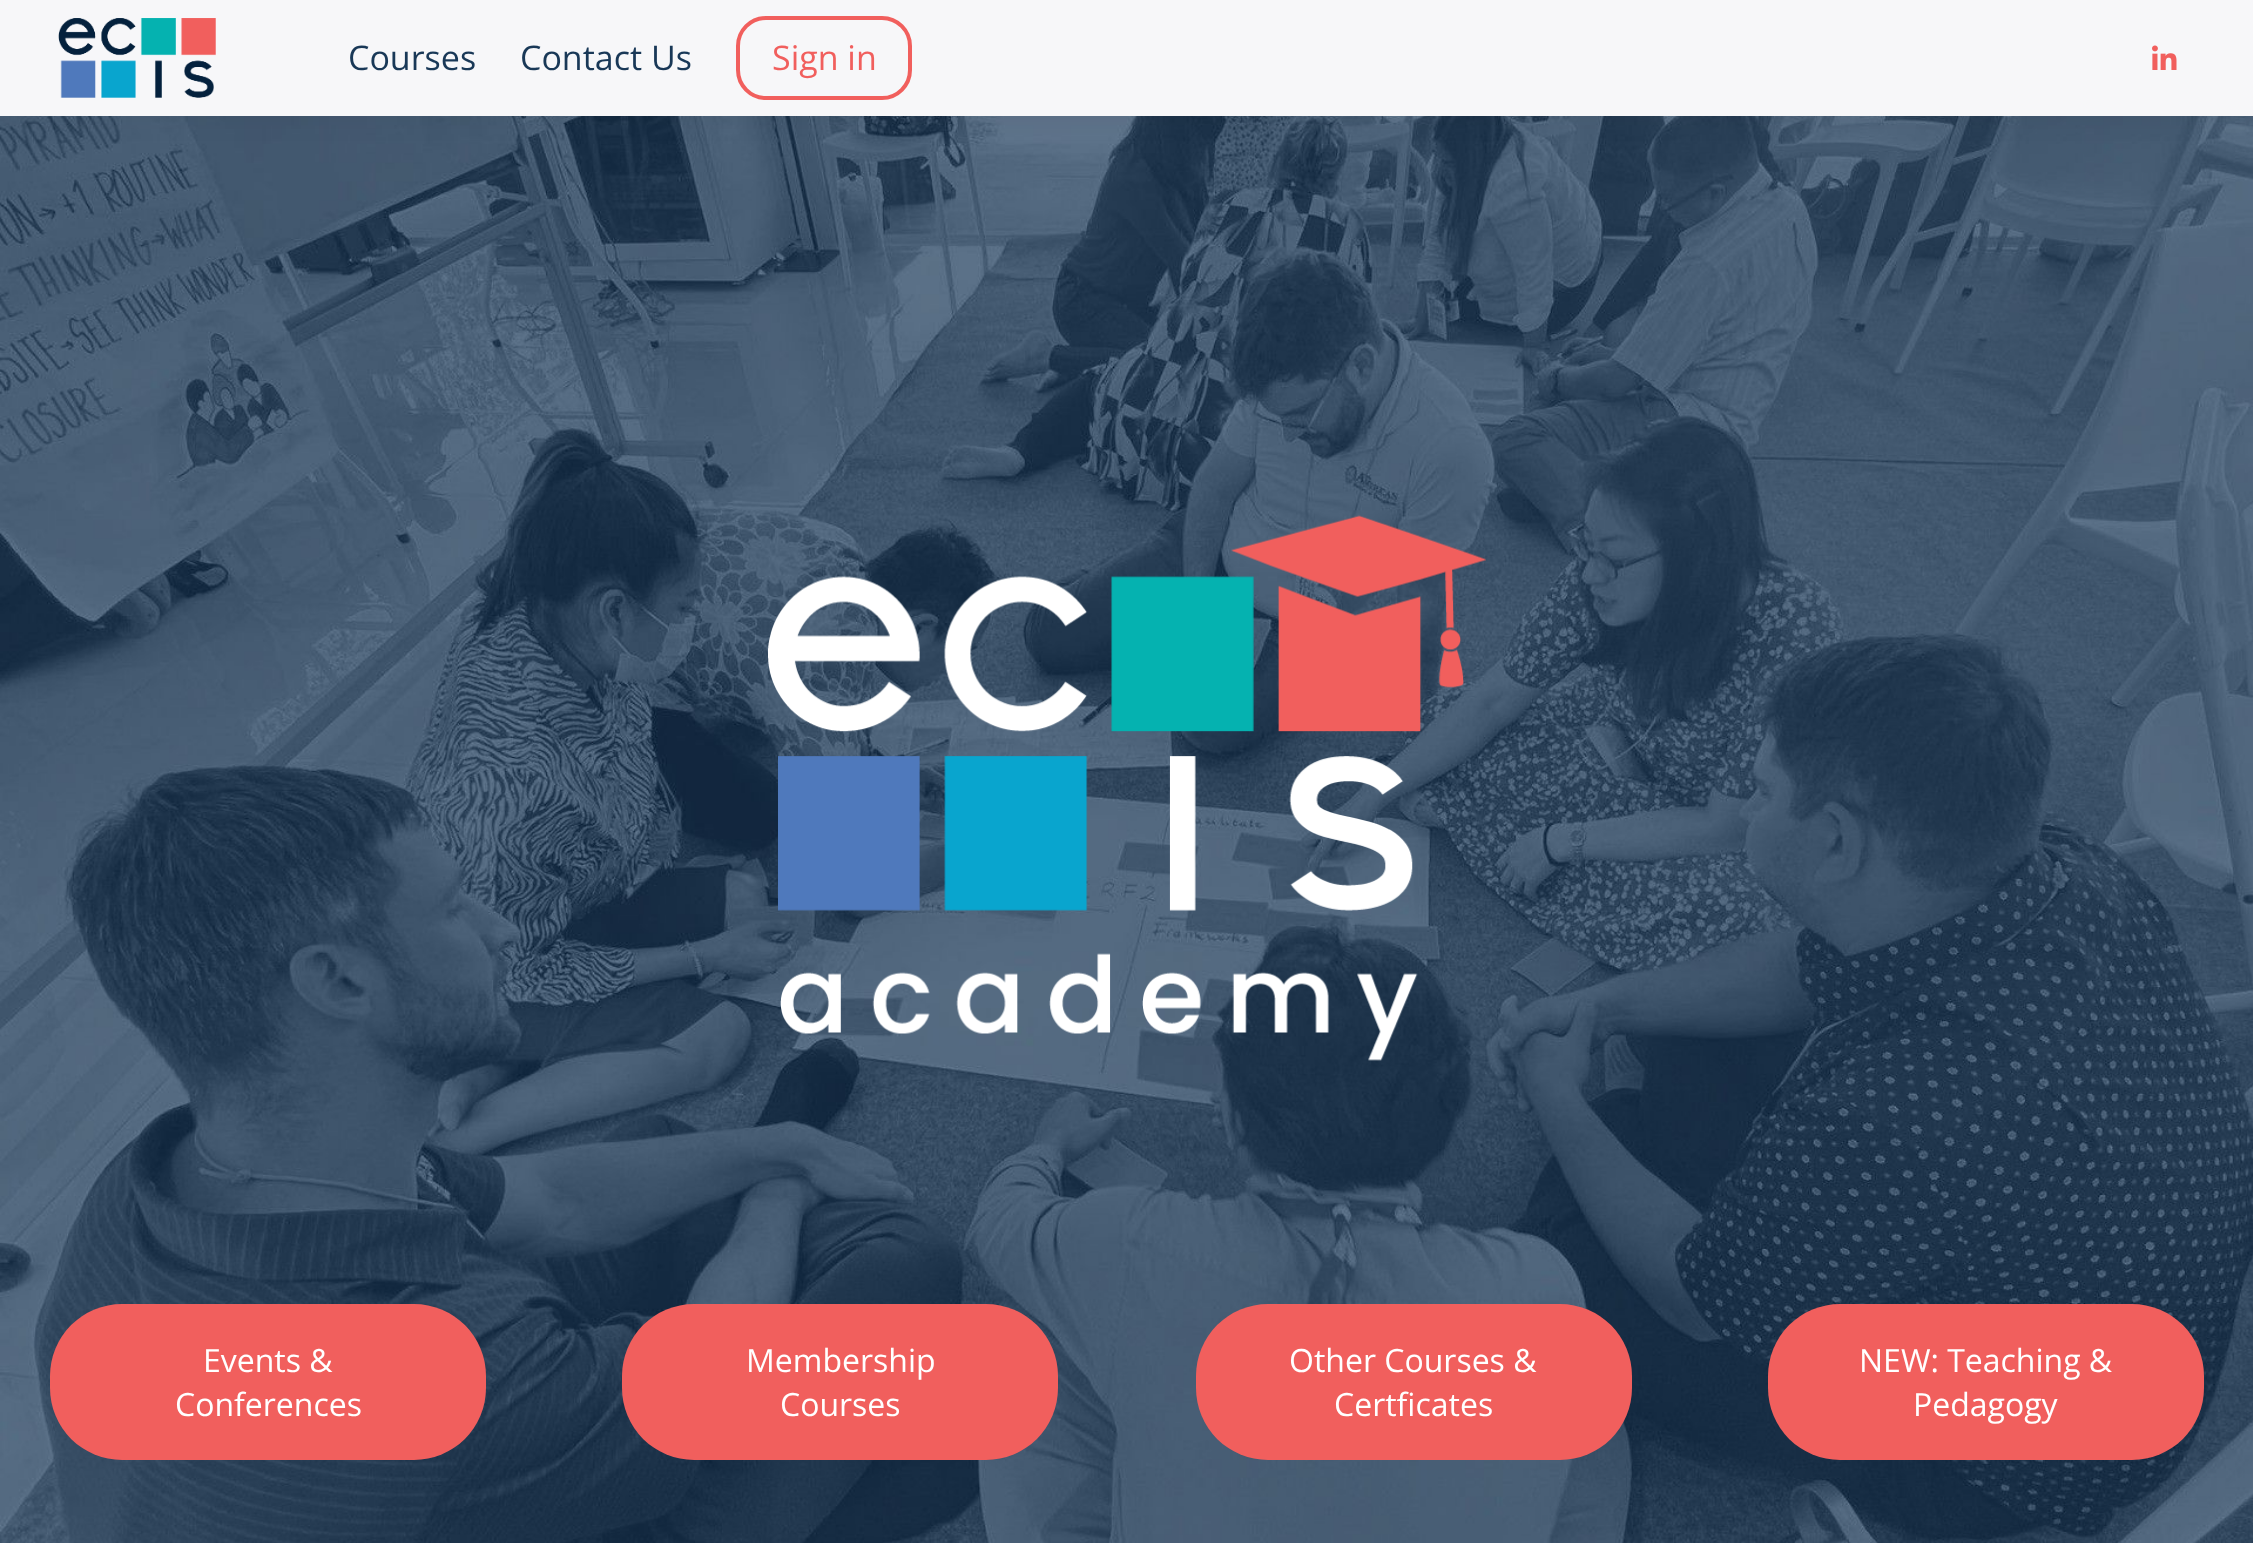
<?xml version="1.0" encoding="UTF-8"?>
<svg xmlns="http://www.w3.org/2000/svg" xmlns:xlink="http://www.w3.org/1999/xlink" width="2253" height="1543">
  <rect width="100%" height="100%" fill="#ffffff" />
  <image x="0" y="116" width="2253" height="1427" xlink:href="image3.png" />
  <rect width="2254" height="116" fill="#000000" fill-opacity="0.05" filter="blur(15px)" />
  <rect width="2253" height="116" fill="#f7f7f9" />
  <image x="58" y="18" width="158" height="80" xlink:href="image1.png" />
  <rect x="738" y="18" width="172" height="80" rx="28" fill="none" stroke="#f15f5d" stroke-width="4" />
  <image x="2152" y="45" width="25" height="25" xlink:href="image2.png" />
  <image x="768" y="515" width="718" height="546" xlink:href="image4.png" />
  <rect x="50" y="1304" width="436" height="156" rx="72" fill="#f15f5d" />
  <rect x="622" y="1304" width="436" height="156" rx="72" fill="#f15f5d" />
  <rect x="1196" y="1304" width="436" height="156" rx="72" fill="#f15f5d" />
  <rect x="1768" y="1304" width="436" height="156" rx="72" fill="#f15f5d" />
  <text x="348" y="70" style="font-family: Open Sans; font-size: 34px; fill: #193857">Courses</text>
  <text x="520" y="70" style="font-family: Open Sans; font-size: 34px; fill: #193857">Contact Us</text>
  <text x="772" y="70" style="font-family: Open Sans; font-size: 34px; fill: #f15f5d">Sign in</text>
  <text x="203" y="1372" style="font-family: Open Sans; font-size: 32px; fill: #ffffff">Events &amp;</text>
  <text x="175" y="1416" style="font-family: Open Sans; font-size: 32px; fill: #ffffff">Conferences</text>
  <text x="746" y="1372" style="font-family: Open Sans; font-size: 32px; fill: #ffffff">Membership</text>
  <text x="780" y="1416" style="font-family: Open Sans; font-size: 32px; fill: #ffffff">Courses</text>
  <text x="1289" y="1372" style="font-family: Open Sans; font-size: 32px; fill: #ffffff">Other Courses &amp;</text>
  <text x="1334" y="1416" style="font-family: Open Sans; font-size: 32px; fill: #ffffff">Certficates</text>
  <text x="1859" y="1372" style="font-family: Open Sans; font-size: 32px; fill: #ffffff">NEW: Teaching &amp;</text>
  <text x="1913" y="1416" style="font-family: Open Sans; font-size: 32px; fill: #ffffff">Pedagogy</text>
</svg>
